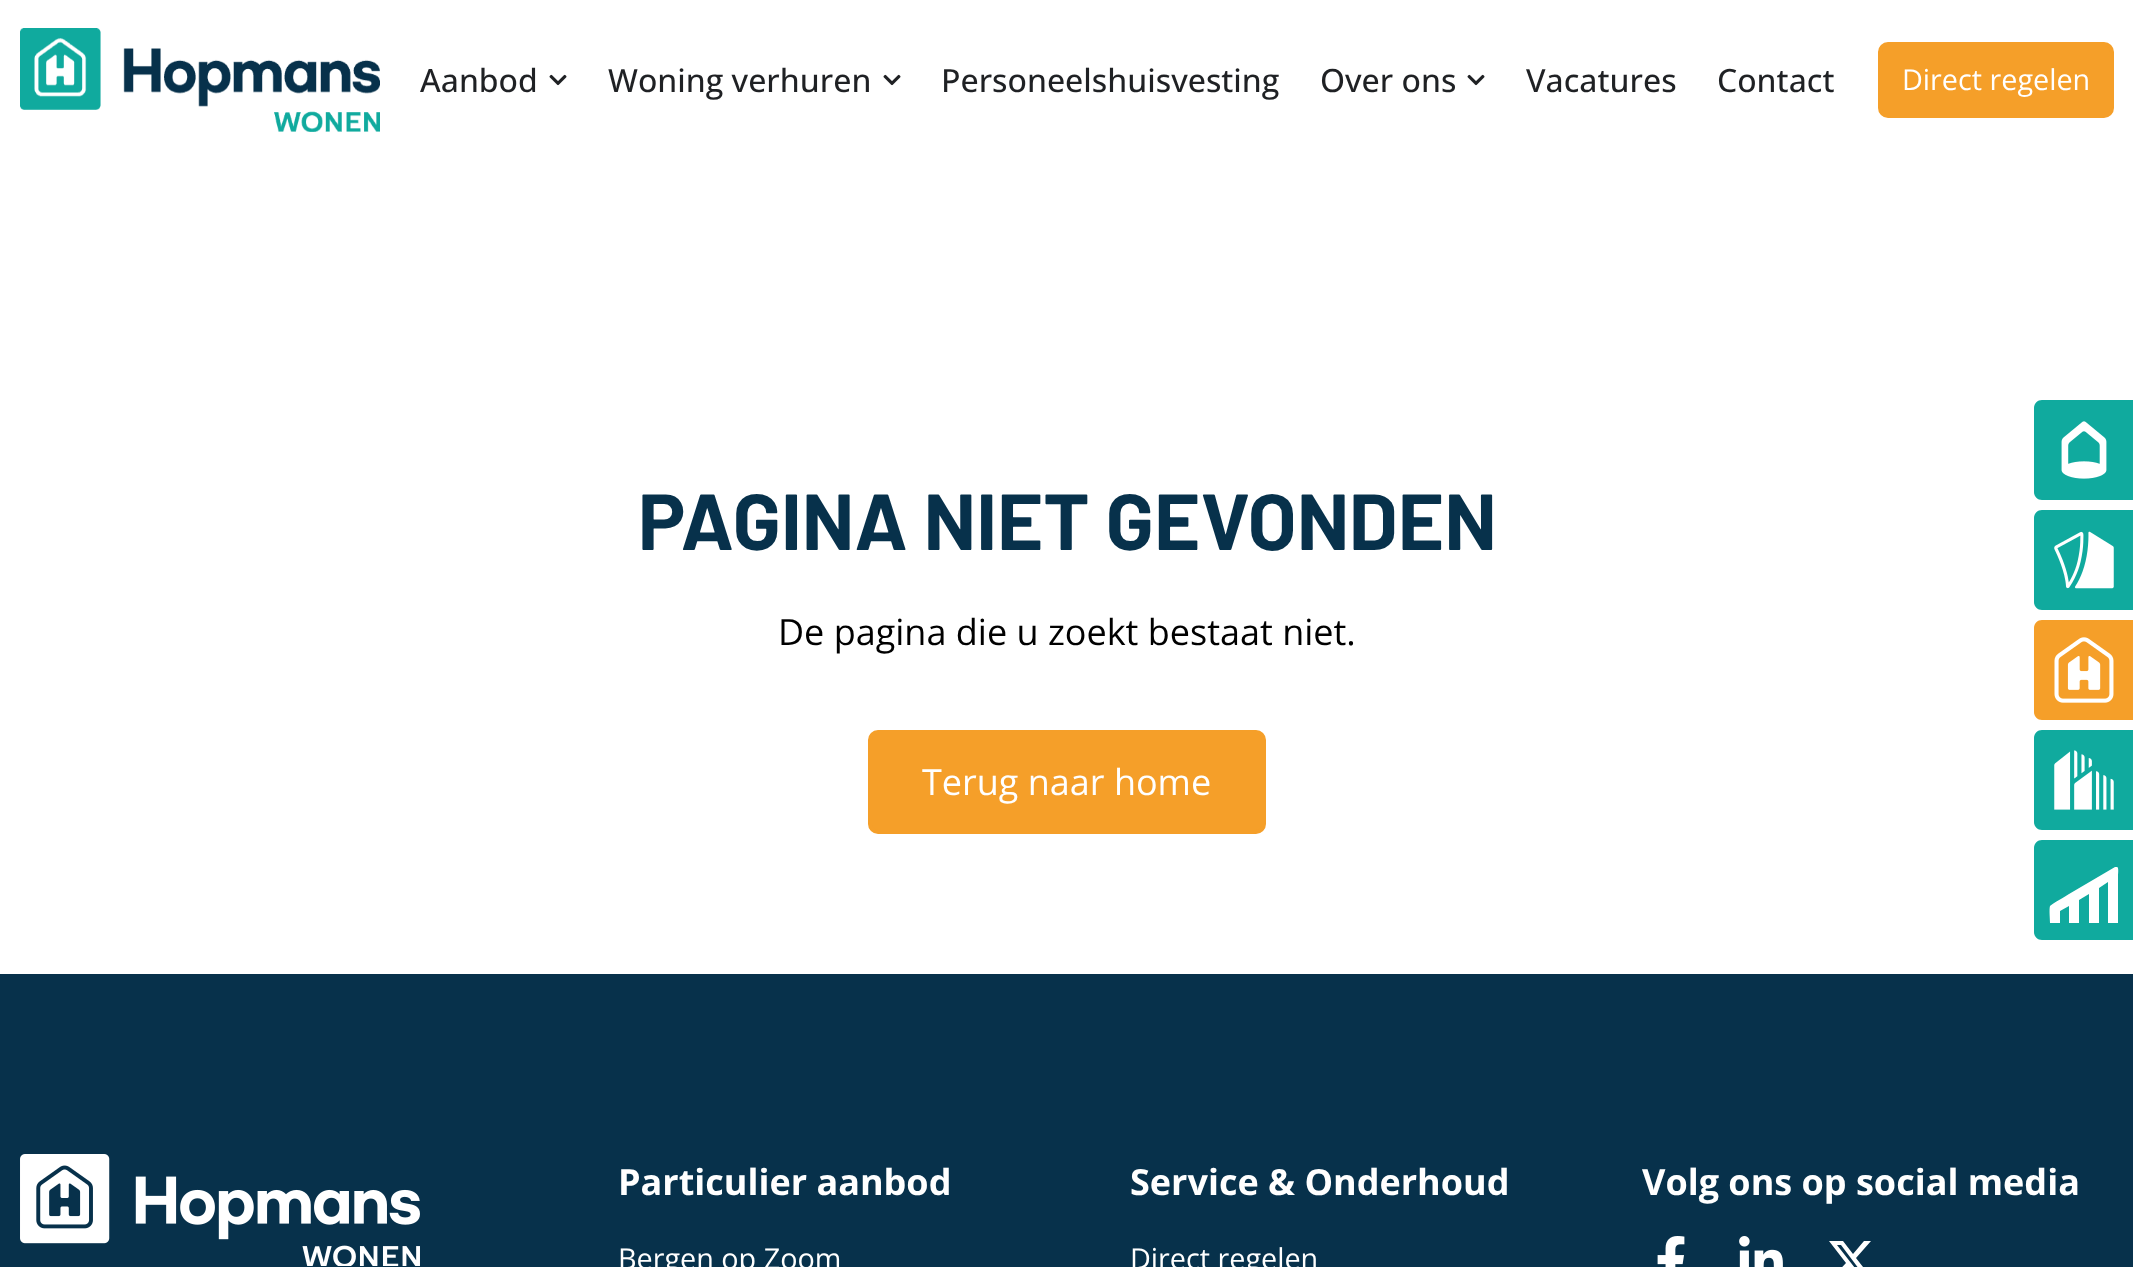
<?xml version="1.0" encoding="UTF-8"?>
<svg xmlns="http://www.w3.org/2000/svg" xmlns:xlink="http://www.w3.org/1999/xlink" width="2133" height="1267">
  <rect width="100%" height="100%" fill="#ffffff" />
  <image x="20" y="28" width="360" height="104" xlink:href="image1.png" />
  <image x="549" y="74" width="18" height="12" xlink:href="image2.png" />
  <image x="883" y="74" width="18" height="12" xlink:href="image2.png" />
  <image x="1467" y="74" width="18" height="12" xlink:href="image2.png" />
  <rect x="1880" y="44" width="232" height="72" rx="8" fill="#f59f29" stroke="#f59f29" stroke-width="4" />
  <rect x="870" y="732" width="394" height="100" rx="8" fill="#f59f29" stroke="#f59f29" stroke-width="4" />
  <path d="M 2042 400 h 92 v 100 h -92 c -4.5 0 -8 -3.5 -8 -8 v -84 c 0 -4.5 3.5 -8 8 -8 z" fill="#10aa9e" />
  <image x="2061" y="421" width="46" height="58" xlink:href="image3.png" />
  <path d="M 2042 510 h 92 v 100 h -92 c -4.5 0 -8 -3.5 -8 -8 v -84 c 0 -4.5 3.5 -8 8 -8 z" fill="#10aa9e" />
  <image x="2054" y="531" width="60" height="58" xlink:href="image4.png" />
  <path d="M 2042 620 h 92 v 100 h -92 c -4.5 0 -8 -3.5 -8 -8 v -84 c 0 -4.5 3.5 -8 8 -8 z" fill="#f59f29" />
  <image x="2054" y="637" width="60" height="66" xlink:href="image5.png" />
  <path d="M 2042 730 h 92 v 100 h -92 c -4.5 0 -8 -3.5 -8 -8 v -84 c 0 -4.5 3.5 -8 8 -8 z" fill="#10aa9e" />
  <image x="2054" y="750" width="60" height="60" xlink:href="image6.png" />
  <path d="M 2042 840 h 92 v 100 h -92 c -4.5 0 -8 -3.5 -8 -8 v -84 c 0 -4.5 3.5 -8 8 -8 z" fill="#10aa9e" />
  <path d="M 2118 876 v 47 h -10 v -41 l -9 6 v 35 h -10 v -29 l -10 6 v 23 h -10 v -17 l -9 5 v 12 h -10 c 0 -4 -1 -14 0 -17 c 2 -2 16 -10 19 -12 l 46 -27 h 2 c 2 0 1 7 1 9 z" fill="#ffffff" />
  <rect y="974" width="2133" height="293" fill="#07314b" />
  <image x="20" y="1154" width="400" height="112" xlink:href="image7.png" />
  <image x="1657" y="1236" width="28" height="31" xlink:href="image8.png" />
  <image x="1739" y="1236" width="44" height="31" xlink:href="image9.png" />
  <path d="M 1864 1241 h 7 l -15 17 l 18 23 h -14 l -11 -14 l -13 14 h -7 l 17 -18 l -17 -22 h 14 l 10 13 z m -2 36 h 3 l -24 -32 h -4 z" fill="#ffffff" />
  <text x="420" y="92" style="font-family: Open Sans; font-size: 32px; font-weight: 500; fill: #1f2124">Aanbod</text>
  <text x="608" y="92" style="font-family: Open Sans; font-size: 32px; font-weight: 500; fill: #1f2124">Woning verhuren</text>
  <text x="941" y="92" style="font-family: Open Sans; font-size: 32px; font-weight: 500; fill: #1f2124">Personeelshuisvesting</text>
  <text x="1320" y="92" style="font-family: Open Sans; font-size: 32px; font-weight: 500; fill: #1f2124">Over ons</text>
  <text x="1526" y="92" style="font-family: Open Sans; font-size: 32px; font-weight: 500; fill: #1f2124">Vacatures</text>
  <text x="1717" y="92" style="font-family: Open Sans; font-size: 32px; font-weight: 500; fill: #1f2124">Contact</text>
  <text x="1902" y="90" style="font-family: Open Sans; font-size: 28.75px; fill: #ffffff">Direct regelen</text>
  <text x="638" y="550" style="font-family: Barlow; font-size: 79.25px; font-weight: bold; fill: #07314b">PAGINA NIET GEVONDEN</text>
  <text x="778" y="645" style="font-family: Open Sans; font-size: 36px; fill: #000000">De pagina die u zoekt bestaat niet.</text>
  <text x="922" y="795" style="font-family: Open Sans; font-size: 36px; fill: #ffffff">Terug naar home</text>
  <text x="618" y="1195" style="font-family: Open Sans; font-size: 36px; font-weight: bold; fill: #ffffff">Particulier aanbod</text>
  <text x="618" y="1269" style="font-family: Open Sans; font-size: 28.75px; fill: #ffffff">Bergen op Zoom</text>
  <text x="1130" y="1195" style="font-family: Open Sans; font-size: 36px; font-weight: bold; fill: #ffffff">Service &amp; Onderhoud</text>
  <text x="1130" y="1269" style="font-family: Open Sans; font-size: 28.75px; fill: #ffffff">Direct regelen</text>
  <text x="1642" y="1195" style="font-family: Open Sans; font-size: 36px; font-weight: bold; fill: #ffffff">Volg ons op social media</text>
</svg>
